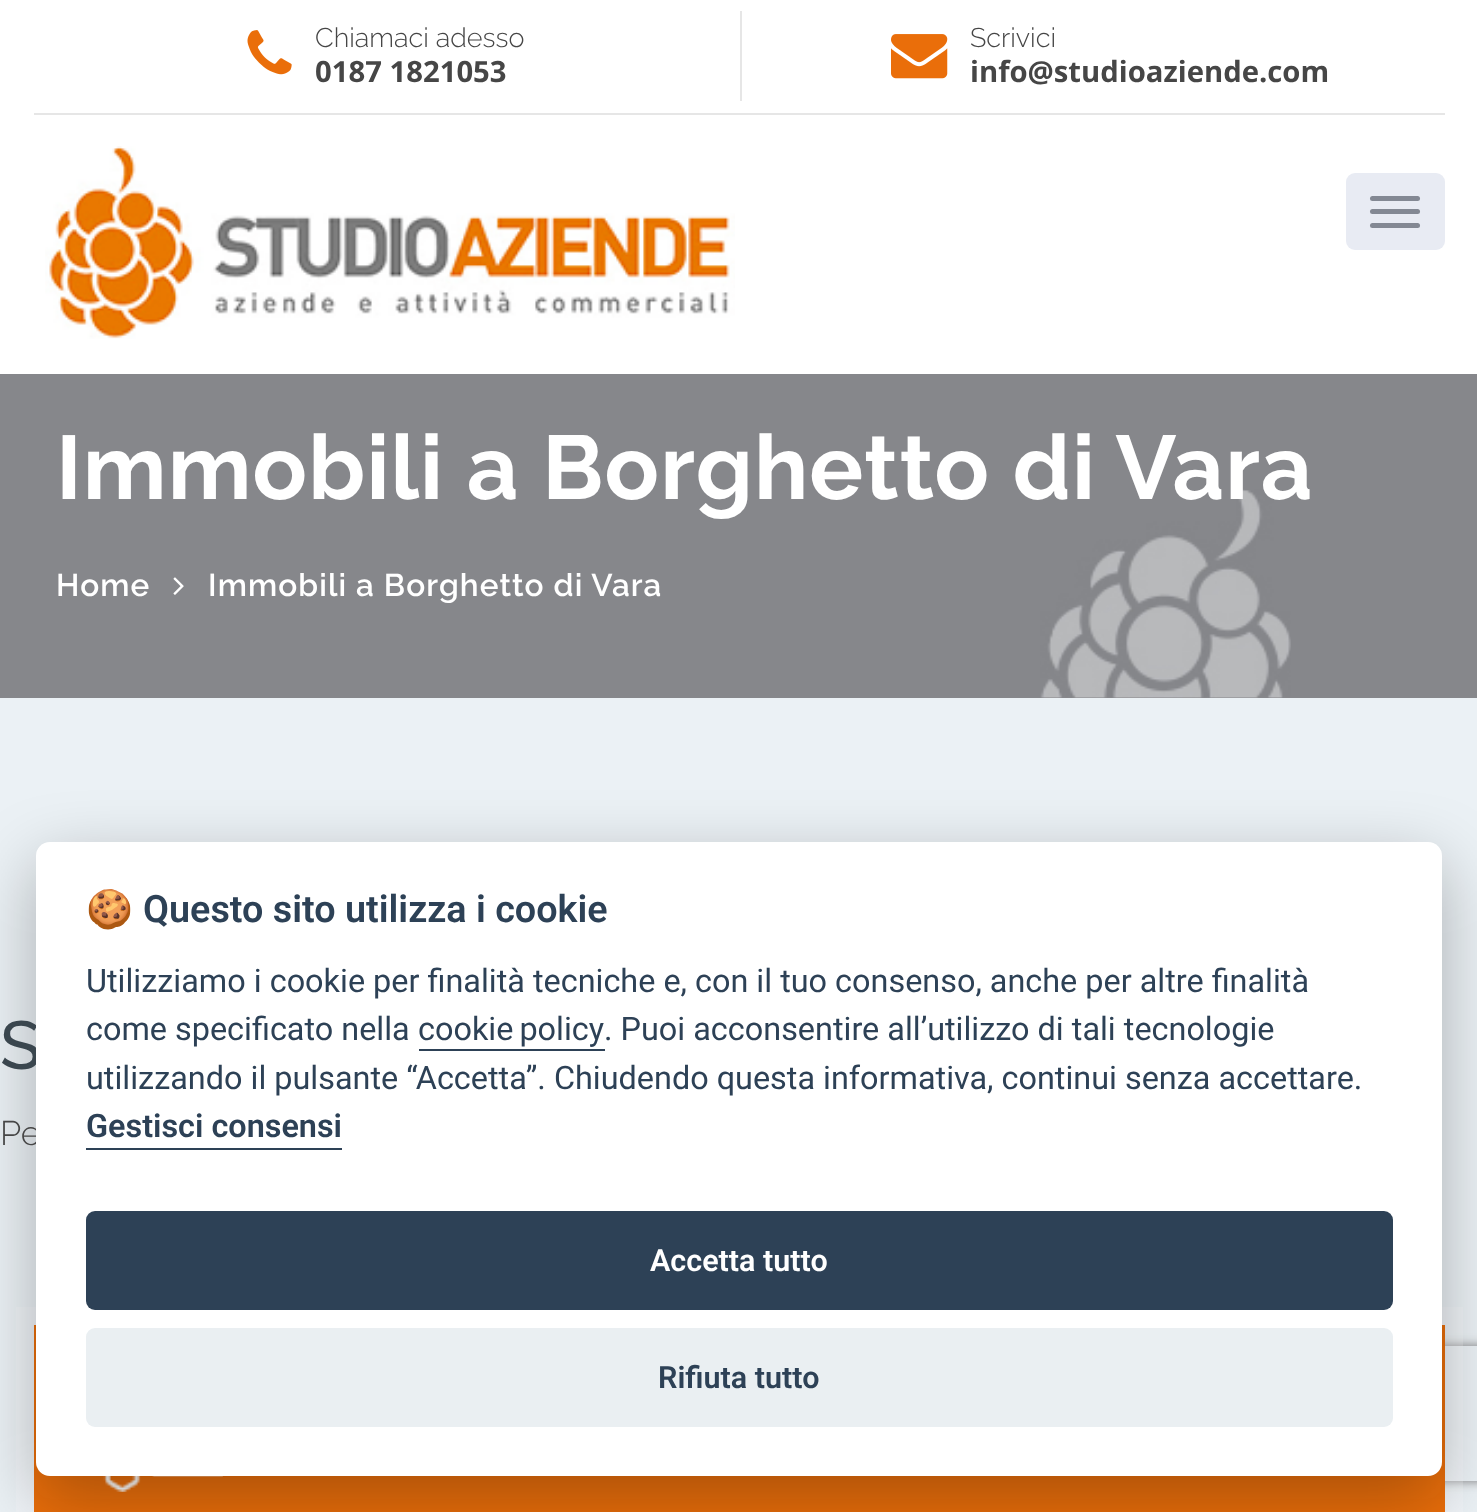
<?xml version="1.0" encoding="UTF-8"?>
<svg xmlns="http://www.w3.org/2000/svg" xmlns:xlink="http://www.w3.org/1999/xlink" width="1477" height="1512">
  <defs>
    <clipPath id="clip1"><path d="M 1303 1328 h 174 v 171 h -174 z m 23 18 h 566 c 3 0 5 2 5 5 v 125 c 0 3 -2 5 -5 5 h -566 c -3 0 -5 -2 -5 -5 v -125 c 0 -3 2 -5 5 -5 z" clip-rule="evenodd" /></clipPath>
  </defs>
  <rect width="100%" height="100%" fill="#ebf1f5" />
  <rect width="1477" height="374" fill="#ffffff" />
  <rect x="34" y="113" width="1411" height="2" fill="#e6e6e6" />
  <image x="247" y="30" width="45" height="45" xlink:href="image1.png" />
  <rect x="740" y="11" width="2" height="90" fill="#e6e6e6" />
  <image x="891" y="34" width="57" height="45" xlink:href="image2.png" />
  <image x="45" y="146" width="690" height="193" xlink:href="image3.png" />
  <rect x="1346" y="173" width="99" height="77" rx="9" fill="#e8ebf3" />
  <rect x="1370" y="196" width="50" height="5" rx="2.5" fill="#838893" />
  <rect x="1370" y="209" width="50" height="5" rx="2.5" fill="#838893" />
  <rect x="1370" y="223" width="50" height="5" rx="2.5" fill="#838893" />
  <rect y="374" width="1477" height="324" fill="#86878b" />
  <image x="1040" y="489" width="251" height="209" xlink:href="image4.png" />
  <image x="173" y="577" width="11" height="18" xlink:href="image5.png" />
  <g clip-path="url(#clip1)">
    <rect x="1321" y="1346" width="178" height="135" rx="5" fill="#808080" filter="blur(5.5px)" />
  </g>
  <rect x="25" y="1316" width="1429" height="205" fill="none" stroke="#ffffff" stroke-opacity="0.2" stroke-width="18" />
  <rect x="34" y="1325" width="1411" height="187" fill="#ea6e0a" />
  <image x="103" y="1476" width="120" height="16" xlink:href="image6.png" />
  <rect x="36" y="864" width="1406" height="635" rx="14" fill="#020203" fill-opacity="0.28" filter="blur(34px)" />
  <text x="315" y="47" style="font-family: Raleway; font-size: 27px; font-weight: 300; fill: #464646">Chiamaci adesso</text>
  <text x="315" y="82" style="font-family: Open Sans; font-size: 29.25px; font-weight: bold; fill: #464646">0187 1821053</text>
  <text x="970" y="47" style="font-family: Raleway; font-size: 27px; font-weight: 300; fill: #464646">Scrivici</text>
  <text x="970" y="82" style="font-family: Open Sans; font-size: 29.25px; font-weight: bold; fill: #464646">info@studioaziende.com</text>
  <text x="56" y="499" style="font-family: Raleway; font-size: 90px; font-weight: bold; letter-spacing: 1.1px; fill: #ffffff">Immobili a Borghetto di Vara</text>
  <text x="56" y="596" style="font-family: Raleway; font-size: 31.5px; font-weight: 600; letter-spacing: 1.1px; fill: #ffffff">Home</text>
  <text x="208" y="596" style="font-family: Raleway; font-size: 31.5px; font-weight: 600; letter-spacing: 1.1px; fill: #ffffff">Immobili a Borghetto di Vara</text>
  <text x="0" y="1069" style="font-family: Raleway; font-size: 68px; font-weight: 500; fill: #3a464e">S</text>
  <text x="0" y="1145" style="font-family: Raleway; font-size: 34px; font-weight: 300; fill: #464646">Pe</text>
  <rect x="36" y="842" width="1406" height="634" rx="14" fill="#ffffff" />
  <text x="86" y="922" style="font-family: Noto Color Emoji; font-size: 37.75px; font-weight: bold; fill: #2d4156">🍪</text>
  <text x="143" y="922" style="font-family: Roboto; font-size: 37.75px; font-weight: 600; fill: #2d4156">Questo sito utilizza i cookie</text>
  <text x="86" y="992" style="font-family: Roboto; font-size: 32.4px; fill: #2d4156">Utilizziamo i cookie per finalità tecniche e, con il tuo consenso, anche per altre finalità</text>
  <text x="86" y="1040" style="font-family: Roboto; font-size: 32.4px; fill: #2d4156">come specificato nella</text>
  <text x="418" y="1040" word-spacing="-2" style="font-family: Roboto; font-size: 32.4px; fill: #2d4156">cookie policy</text>
  <rect x="419" y="1049" width="186" height="2" fill="#2d4156" />
  <text x="604" y="1040" style="font-family: Roboto; font-size: 32.4px; fill: #2d4156">. Puoi acconsentire all’utilizzo di tali tecnologie</text>
  <text x="86" y="1089" style="font-family: Roboto; font-size: 32.4px; fill: #2d4156">utilizzando il pulsante “Accetta”. Chiudendo questa informativa, continui senza accettare.</text>
  <text x="86" y="1137" style="font-family: Roboto; font-size: 32.4px; font-weight: 600; fill: #2d4156">Gestisci consensi</text>
  <rect x="86" y="1148" width="256" height="2" fill="#2d4156" />
  <rect x="86" y="1211" width="1307" height="99" rx="9" fill="#2d4156" />
  <text x="650" y="1271" style="font-family: Roboto; font-size: 30.5px; font-weight: 600; fill: #ffffff">Accetta tutto</text>
  <rect x="86" y="1328" width="1307" height="99" rx="9" fill="#eaeff2" />
  <text x="658" y="1388" style="font-family: Roboto; font-size: 30.5px; font-weight: 600; fill: #2d4156">Rifiuta tutto</text>
</svg>
